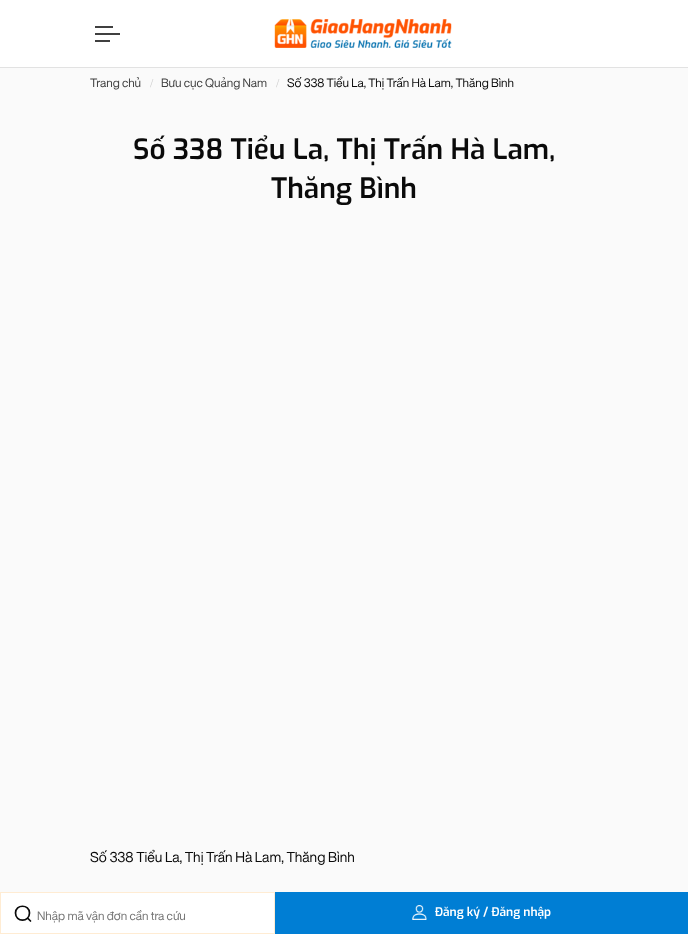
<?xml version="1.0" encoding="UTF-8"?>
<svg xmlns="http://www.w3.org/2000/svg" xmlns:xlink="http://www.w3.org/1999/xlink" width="688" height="934">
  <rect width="100%" height="100%" fill="#fafafa" />
  <rect y="67" width="688" height="1" fill="#e2e2e2" />
  <rect width="688" height="67" fill="#ffffff" />
  <rect x="95" y="33" width="25" height="2" fill="#404040" />
  <rect x="95" y="26" width="18" height="2" fill="#404040" />
  <rect x="95" y="40" width="15" height="2" fill="#404040" />
  <image x="274" y="19" width="178" height="29" xlink:href="image1.png" />
  <rect x="0.5" y="892.5" width="274" height="41" fill="#ffffff" stroke="#ffecd3" />
  <path d="M 30.5 921 l -3 -3 m 2 -5 c 0 9.5 -14 9.5 -14 0 c 0 -9 14 -9 14 0 z" fill="none" stroke="#0a0a0a" stroke-width="1.7" stroke-linecap="round" stroke-linejoin="round" />
  <rect x="275" y="892" width="413" height="42" fill="#007ed4" />
  <image x="412" y="905" width="15" height="15" xlink:href="image2.png" />
  <text x="90" y="87" style="font-family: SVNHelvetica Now; font-size: 12px; fill: #404040">Trang chủ</text>
  <text x="150" y="87" style="font-family: Liberation Serif; font-size: 12px; fill: #cccccc">/</text>
  <text x="161" y="87" style="font-family: SVNHelvetica Now; font-size: 12px; fill: #404040">Bưu cục Quảng Nam</text>
  <text x="276" y="87" style="font-family: Liberation Serif; font-size: 12px; fill: #cccccc">/</text>
  <text x="287" y="87" style="font-family: SVNHelvetica Now; font-size: 12px; fill: #0a0a0a">Số 338 Tiểu La, Thị Trấn Hà Lam, Thăng Bình</text>
  <text x="133" y="159" style="font-family: Exo; font-size: 28px; font-weight: 600; fill: #0a0a0a">Số 338 Tiểu La, Thị Trấn Hà Lam,</text>
  <text x="271" y="198" style="font-family: Exo; font-size: 28px; font-weight: 600; fill: #0a0a0a">Thăng Bình</text>
  <text x="90" y="862" style="font-family: SVNHelvetica Now; font-size: 14px; fill: #0a0a0a">Số 338 Tiểu La, Thị Trấn Hà Lam, Thăng Bình</text>
  <text x="37" y="920" style="font-family: SVNHelvetica Now; font-size: 12px; fill: #757575">Nhập mã vận đơn cần tra cứu</text>
  <text x="435" y="916" style="font-family: Exo; font-size: 12px; font-weight: 600; fill: #ffffff">Đăng ký / Đăng nhập</text>
</svg>
